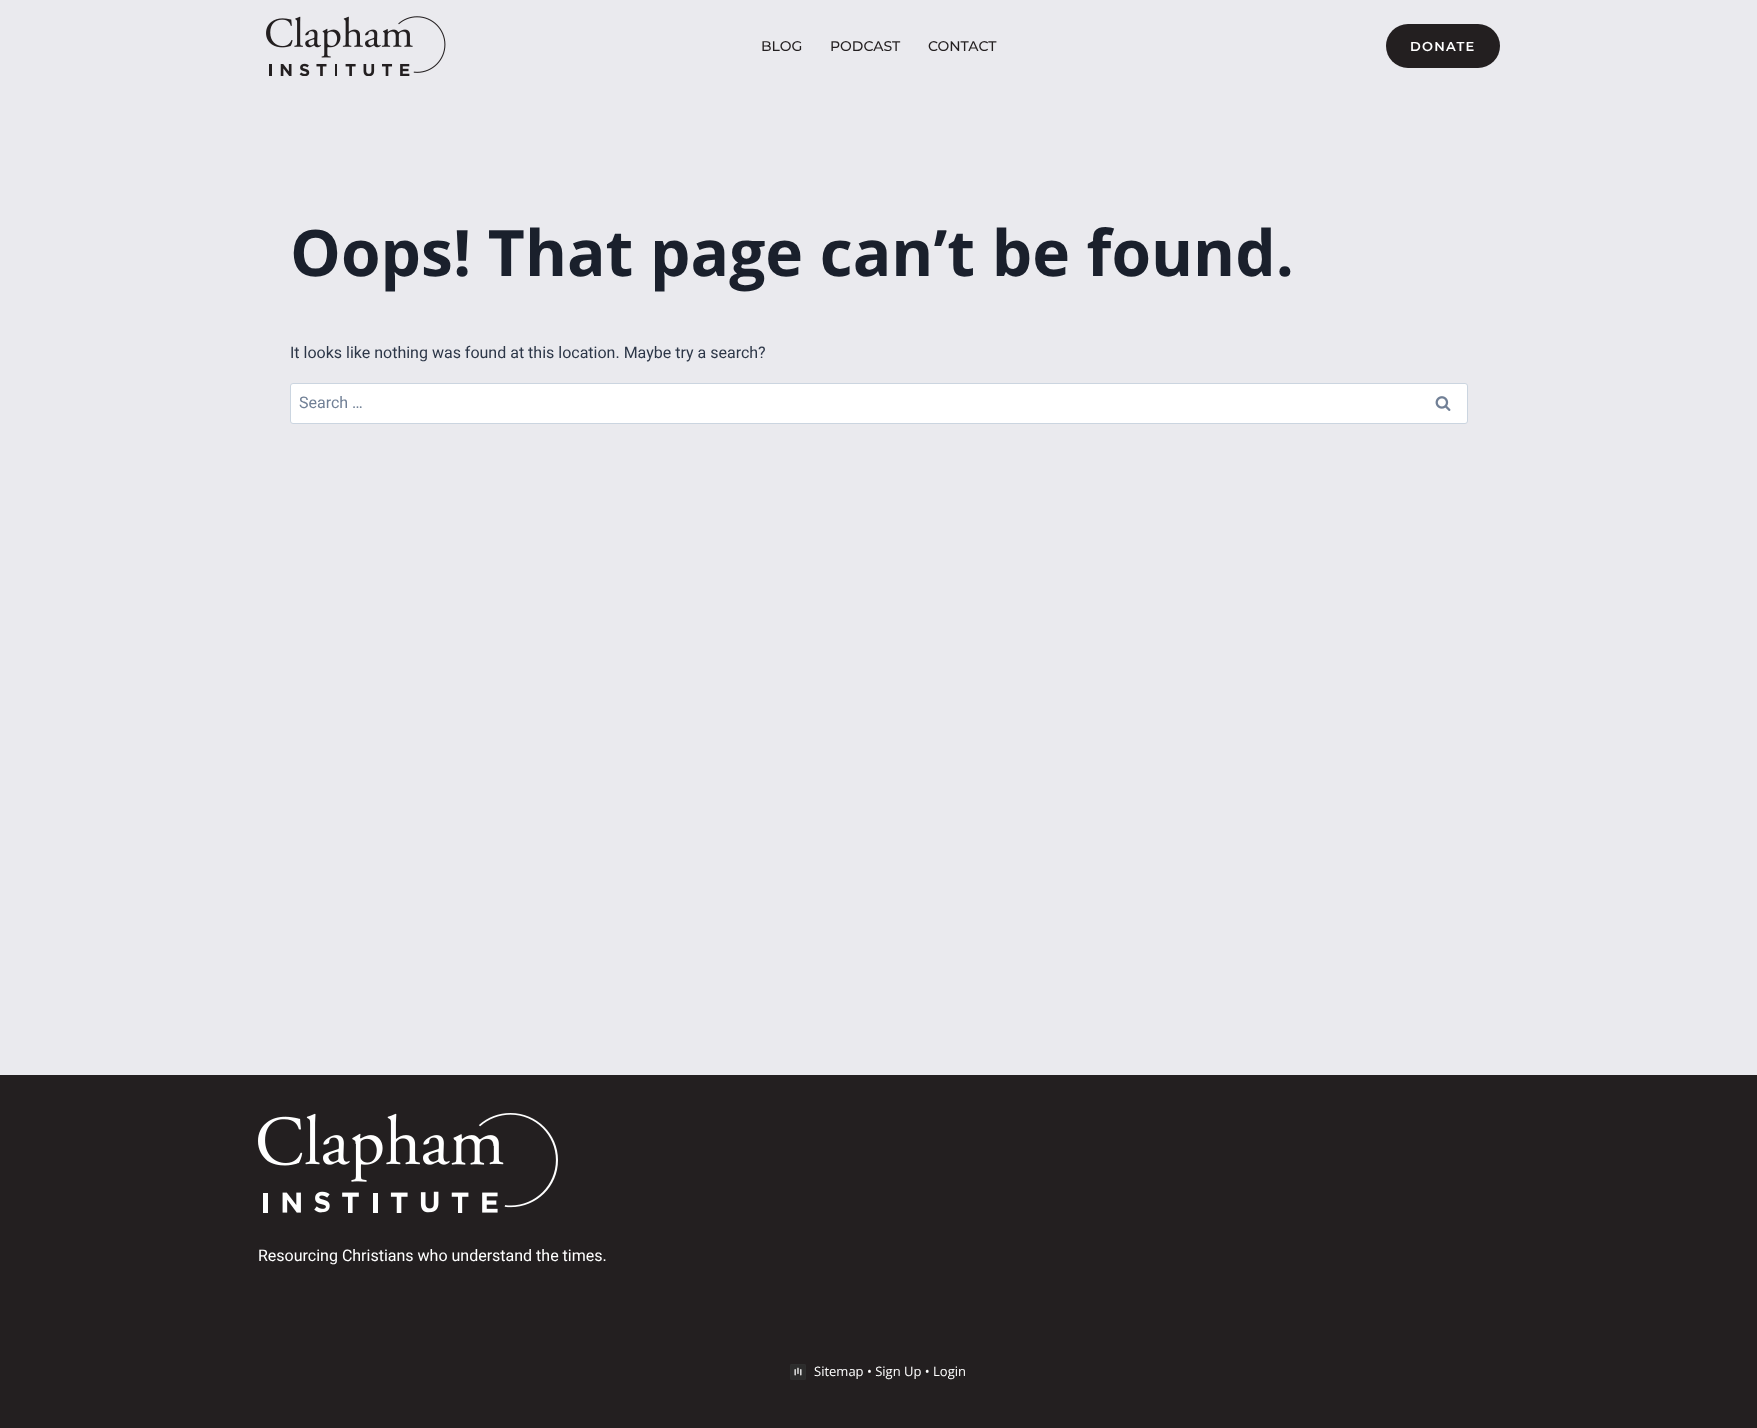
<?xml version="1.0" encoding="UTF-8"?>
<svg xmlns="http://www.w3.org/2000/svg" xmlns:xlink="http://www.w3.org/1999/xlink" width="1757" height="1428">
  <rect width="100%" height="100%" fill="#eaeaee" />
  <image x="266" y="16" width="180" height="60" xlink:href="image1.png" />
  <rect x="1386" y="24" width="114" height="44" rx="22" fill="#231f20" />
  <rect x="290.5" y="383.5" width="1177" height="40" rx="2.5" fill="#ffffff" stroke="#cbd5e0" />
  <image x="1435" y="396" width="16" height="15" xlink:href="image2.png" />
  <rect y="1075" width="1757" height="353" fill="#231f20" />
  <image x="258" y="1113" width="300" height="100" xlink:href="image3.png" />
  <image x="790" y="1364" width="16" height="16" xlink:href="image4.png" />
  <text x="761" y="51" style="font-family: Montserrat; font-size: 14px; font-weight: 500; fill: #231f20">BLOG</text>
  <text x="830" y="51" style="font-family: Montserrat; font-size: 14px; font-weight: 500; fill: #231f20">PODCAST</text>
  <text x="928" y="51" style="font-family: Montserrat; font-size: 14px; font-weight: 500; fill: #231f20">CONTACT</text>
  <text x="1410" y="51" style="font-family: Montserrat; font-size: 13px; font-weight: 600; letter-spacing: 1.25px; fill: #ffffff">DONATE</text>
  <text x="290" y="276" style="font-family: Open Sans; font-size: 64px; font-weight: bold; fill: #1a202c">Oops! That page can’t be found.</text>
  <text x="290" y="358" style="font-family: Roboto; font-size: 16px; fill: #2d3748">It looks like nothing was found at this location. Maybe try a search?</text>
  <text x="299" y="408" style="font-family: Roboto; font-size: 16px; fill: #718096">Search …</text>
  <text x="258" y="1261" style="font-family: Roboto; font-size: 16px; fill: #ffffff">Resourcing Christians who understand the times.</text>
  <text x="814" y="1376" style="font-family: Open Sans; font-size: 13px; fill: #ffffff">Sitemap • Sign Up • Login</text>
</svg>
